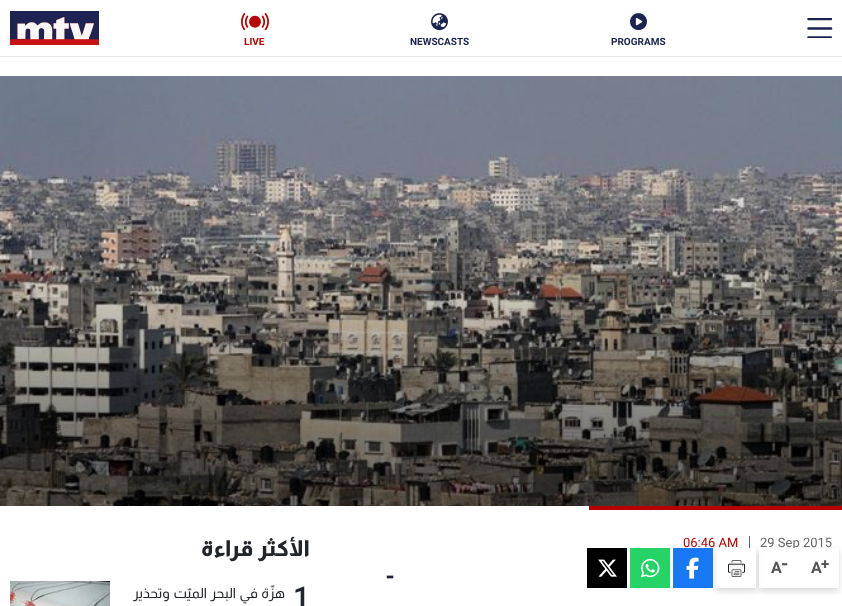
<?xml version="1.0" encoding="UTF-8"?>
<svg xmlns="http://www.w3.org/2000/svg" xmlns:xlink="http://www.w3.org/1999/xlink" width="842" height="606">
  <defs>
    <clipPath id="clip1"><rect x="807" y="18" width="25" height="20" /></clipPath>
  </defs>
  <rect width="100%" height="100%" fill="#ffffff" />
  <rect y="56" width="842" height="1" fill="#e6e6e6" />
  <image x="10" y="11" width="89" height="34" xlink:href="image1.png" />
  <g clip-path="url(#clip1)">
    <path d="M 808.5 19 h 22.5" fill="none" stroke="#1c2351" stroke-width="2.5" stroke-linecap="round" />
  </g>
  <path d="M 808.5 28.5 h 22.5" fill="none" stroke="#1c2351" stroke-width="2.5" stroke-linecap="round" />
  <g clip-path="url(#clip1)">
    <path d="M 808.5 37.5 h 22.5" fill="none" stroke="#1c2351" stroke-width="2.5" stroke-linecap="round" />
  </g>
  <image x="241" y="13" width="28" height="17" xlink:href="image2.png" />
  <image x="431" y="13" width="17" height="18" xlink:href="image3.png" />
  <image x="630" y="13" width="17" height="18" xlink:href="image4.png" />
  <image x="0" y="76" width="842" height="430" xlink:href="image5.png" />
  <rect x="589" y="506" width="253" height="4" fill="#b90000" />
  <image x="10" y="581" width="100" height="25" xlink:href="image6.png" />
  <rect x="749" y="536" width="1" height="13" fill="#666666" />
  <rect x="587" y="548" width="40" height="40" fill="#000000" />
  <image x="598" y="559" width="19" height="18" xlink:href="image7.png" />
  <rect x="630" y="548" width="40" height="40" fill="#25d366" />
  <image x="641" y="558" width="19" height="20" xlink:href="image8.png" />
  <rect x="759" y="551" width="80" height="40" fill="#000000" fill-opacity="0.16" filter="blur(3px)" />
  <text x="244" y="45" style="font-family: Roboto; font-size: 10px; font-weight: bold; fill: #b90000">LIVE</text>
  <text x="410" y="45" style="font-family: Roboto; font-size: 10px; font-weight: bold; fill: #1c2351">NEWSCASTS</text>
  <text x="611" y="45" style="font-family: Roboto; font-size: 10px; font-weight: bold; fill: #1c2351">PROGRAMS</text>
  <text x="310" y="556" word-spacing="1" style="font-family: Almarai; font-size: 22px; font-weight: 800; direction: rtl; fill: #212529">الأكثر قراءة</text>
  <text x="285" y="598" word-spacing="1" style="font-family: Almarai; font-size: 14px; direction: rtl; fill: #212529">هزّة في البحر الميّت وتحذير</text>
  <text x="293" y="608" style="font-family: Roboto; font-size: 30px; font-weight: 500; fill: #212529">1</text>
  <text x="683" y="547" style="font-family: Roboto; font-size: 13px; fill: #b90000">06:46 AM</text>
  <text x="760" y="547" style="font-family: Roboto; font-size: 13px; fill: #666666">29 Sep 2015</text>
  <text x="395" y="584" style="font-family: Roboto; font-size: 23px; font-weight: 800; direction: rtl; fill: #1e2131">-</text>
  <rect x="759" y="548" width="80" height="40" fill="#ffffff" />
  <rect x="716" y="551" width="40" height="40" fill="#000000" fill-opacity="0.16" filter="blur(3px)" />
  <rect x="673" y="548" width="40" height="40" fill="#1877f2" />
  <image x="686" y="557" width="13" height="22" xlink:href="image9.png" />
  <rect x="716" y="548" width="40" height="40" fill="#ffffff" />
  <image x="728" y="560" width="17" height="17" xlink:href="image10.png" />
  <text x="781" y="570" style="font-family: Roboto; font-size: 19px; font-weight: bold; fill: #555555">-</text>
  <text x="771" y="573" style="font-family: Roboto; font-size: 16px; font-weight: bold; fill: #555555">A</text>
  <text x="811" y="573" style="font-family: Roboto; font-size: 16px; font-weight: bold; fill: #555555">A</text>
  <text x="821" y="569" style="font-family: Roboto; font-size: 15px; font-weight: bold; fill: #555555">+</text>
</svg>
